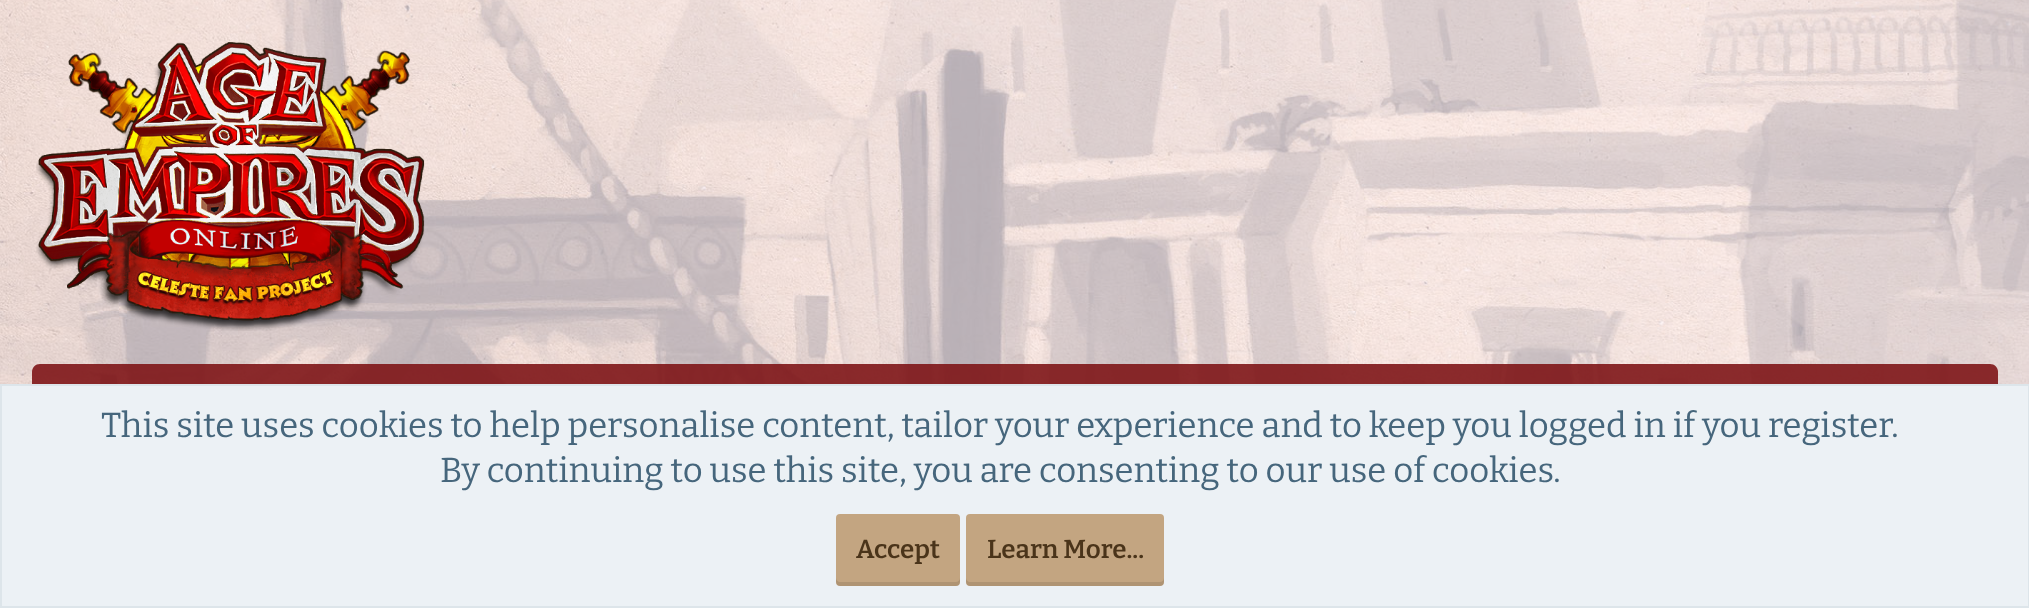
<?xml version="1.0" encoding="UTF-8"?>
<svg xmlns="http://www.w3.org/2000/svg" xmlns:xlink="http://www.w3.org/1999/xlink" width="2029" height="608">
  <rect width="100%" height="100%" fill="#fef4ff" />
  <image x="0" y="0" width="2029" height="384" xlink:href="image1.png" />
  <image x="36" y="42" width="389" height="289" xlink:href="image2.png" />
  <path d="M 40 364 h 1950 c 4.5 0 8 3.5 8 8 v 104 h -1966 v -104 c 0 -4.5 3.5 -8 8 -8 z" fill="#7e1517" fill-opacity="0.9" />
  <rect x="1" y="385" width="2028" height="222" fill="#ecf1f5" stroke="#dde5ea" stroke-width="2" />
  <rect x="836" y="514" width="124" height="72" rx="4" fill="#c3a581" />
  <path d="M 836 578 v 4 c 0 2 2 4 4 4 h 116 c 2 0 4 -2 4 -4 v -4 c 0 2 -2 4 -4 4 h -116 c -2 0 -4 -2 -4 -4 z" fill="#000000" fill-opacity="0.1" />
  <rect x="966" y="514" width="198" height="72" rx="4" fill="#c3a581" />
  <path d="M 966 578 v 4 c 0 2 2 4 4 4 h 190 c 2 0 4 -2 4 -4 v -4 c 0 2 -2 4 -4 4 h -190 c -2 0 -4 -2 -4 -4 z" fill="#000000" fill-opacity="0.1" />
  <text x="101" y="437" style="font-family: Bitter; font-size: 34.67px; fill: #46667c">This site uses cookies to help personalise content, tailor your experience and to keep you logged in if you register.</text>
  <text x="440" y="482" style="font-family: Bitter; font-size: 34.67px; fill: #46667c">By continuing to use this site, you are consenting to our use of cookies.</text>
  <text x="856" y="558" style="font-family: Bitter; font-size: 26px; font-weight: 600; fill: #4a341a">Accept</text>
  <text x="987" y="558" style="font-family: Bitter; font-size: 26px; font-weight: 600; fill: #4a341a">Learn More...</text>
</svg>
